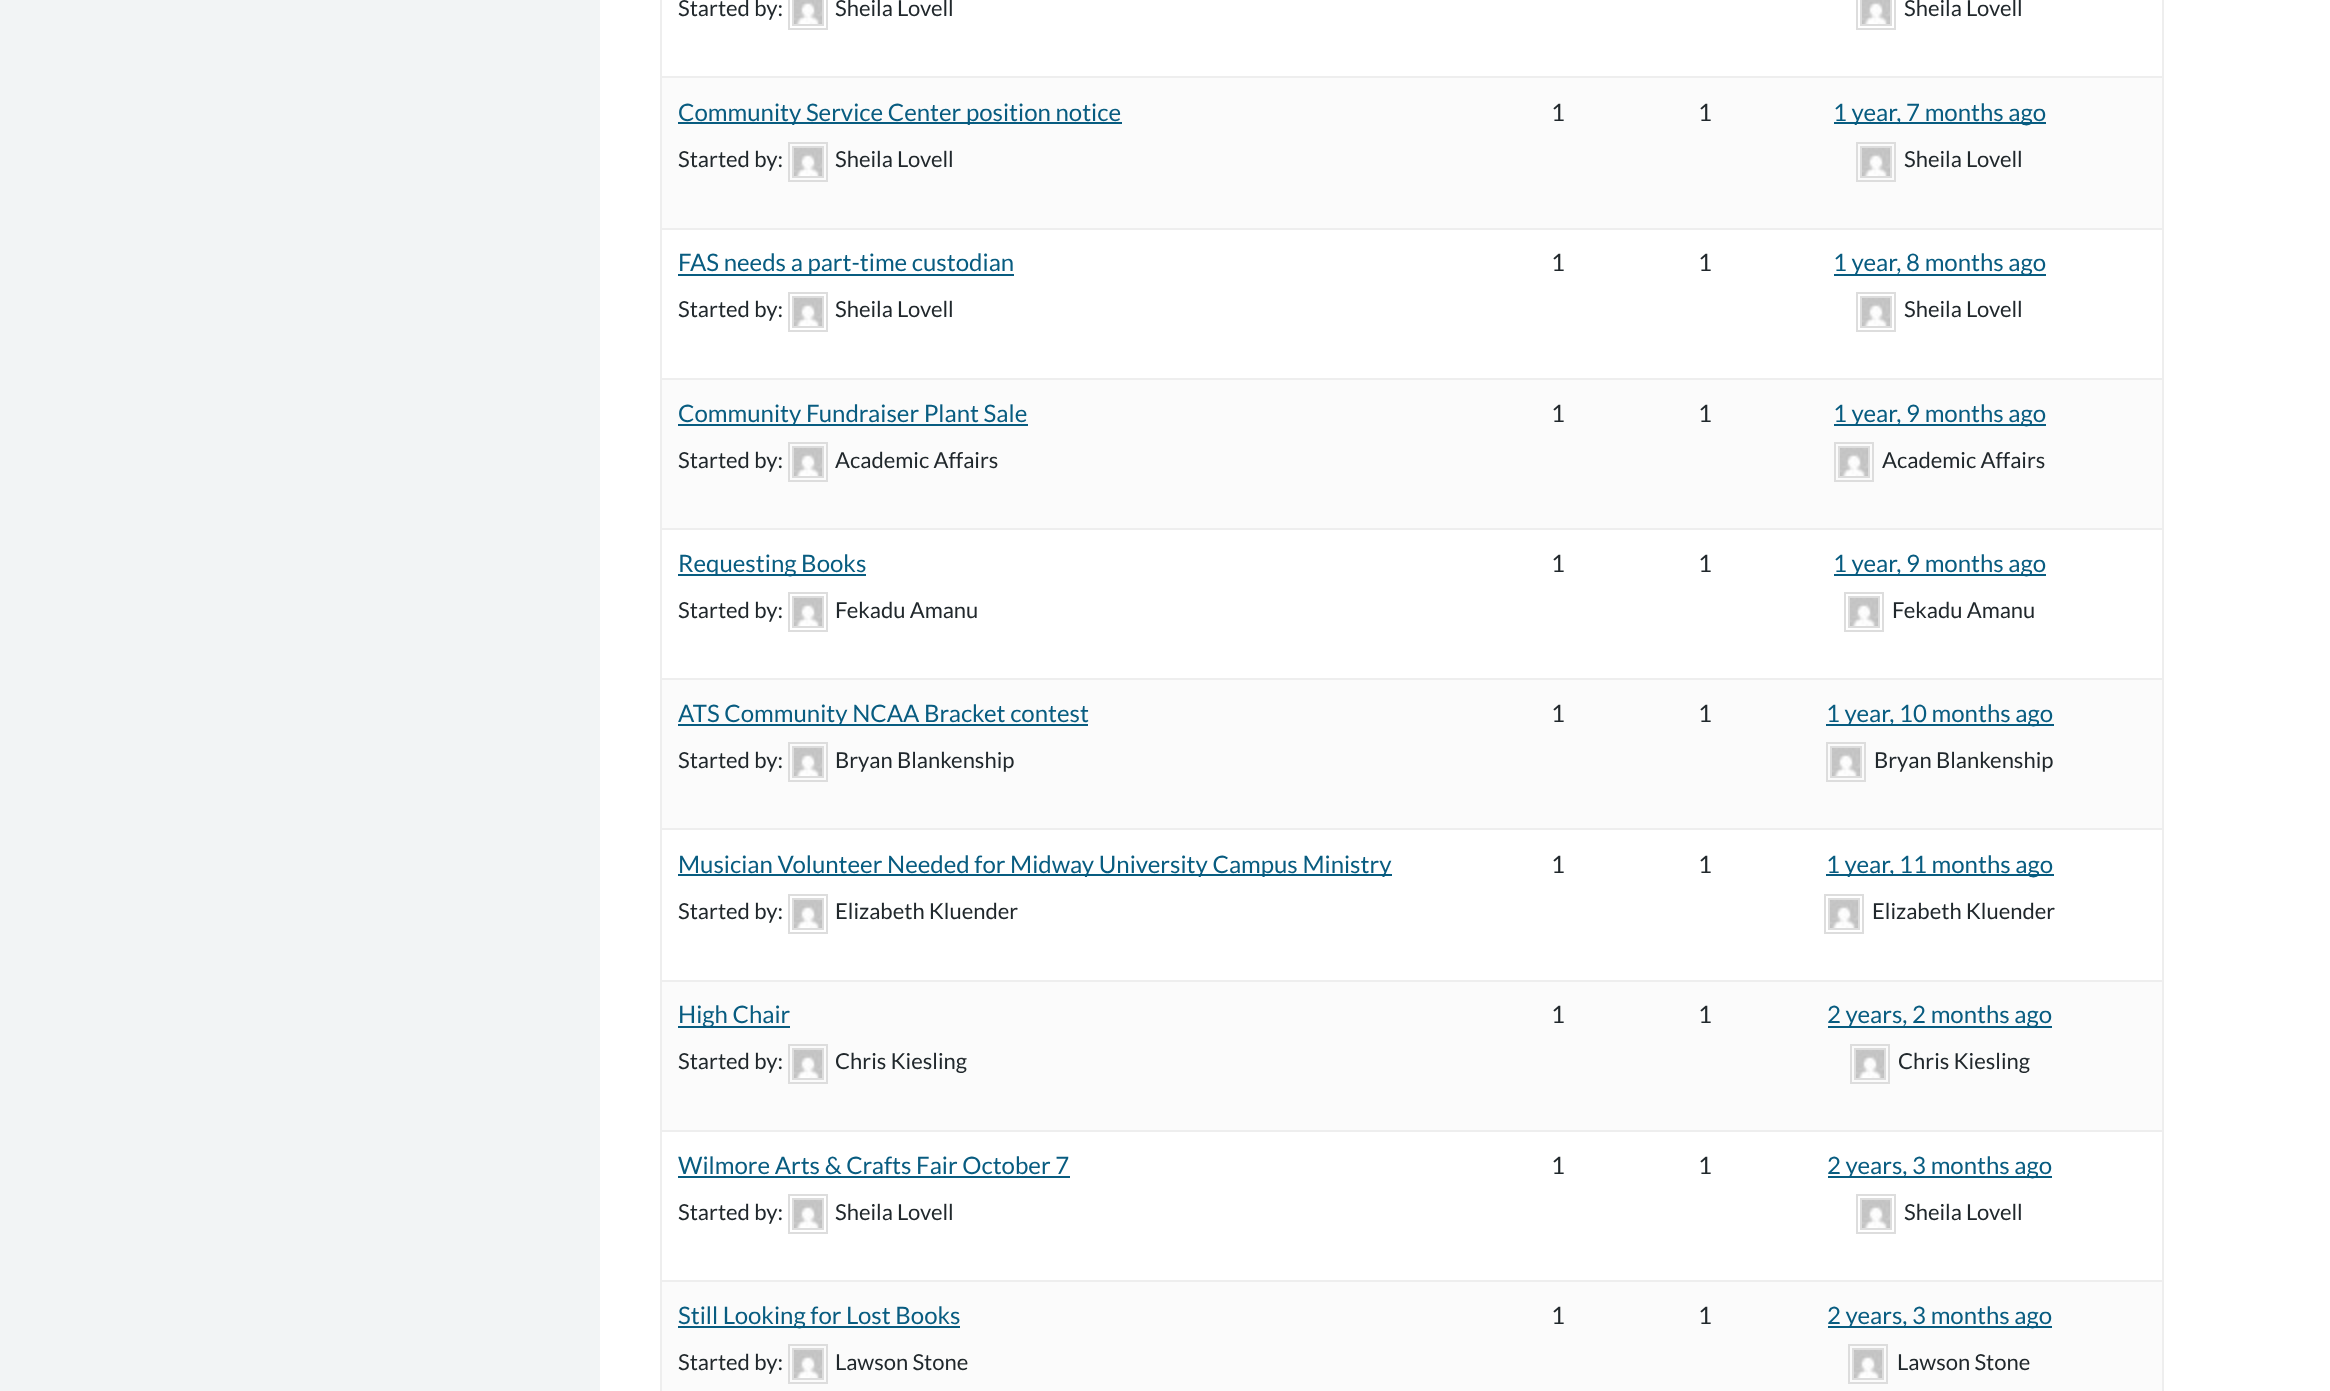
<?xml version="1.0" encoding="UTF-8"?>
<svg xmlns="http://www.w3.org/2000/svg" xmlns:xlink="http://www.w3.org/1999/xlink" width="2330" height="1391">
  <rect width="100%" height="100%" fill="#ffffff" />
  <rect width="600" height="1391" fill="#f2f4f5" />
  <rect x="661" y="-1" width="1502" height="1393" fill="none" stroke="#eeeeee" stroke-width="2" />
  <rect x="789" y="-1" width="38" height="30" fill="none" stroke="#dddddd" stroke-width="2" />
  <rect x="793" y="-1" width="30" height="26" fill="none" stroke="#dddddd" stroke-width="2" />
  <image x="794" y="0" width="28" height="24" xlink:href="image1.png" />
  <rect x="1857" y="-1" width="38" height="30" fill="none" stroke="#dddddd" stroke-width="2" />
  <rect x="1861" y="-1" width="30" height="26" fill="none" stroke="#dddddd" stroke-width="2" />
  <image x="1862" y="0" width="28" height="24" xlink:href="image1.png" />
  <rect x="662" y="78" width="1500" height="150" fill="#fbfbfb" />
  <rect x="662" y="76" width="1500" height="2" fill="#eeeeee" />
  <rect x="678" y="122" width="444" height="2" fill="#085c80" />
  <rect x="789" y="143" width="38" height="38" fill="none" stroke="#dddddd" stroke-width="2" />
  <rect x="793" y="147" width="30" height="30" fill="none" stroke="#dddddd" stroke-width="2" />
  <image x="794" y="148" width="28" height="28" xlink:href="image2.png" />
  <rect x="1834" y="122" width="212" height="2" fill="#085c80" />
  <rect x="1857" y="143" width="38" height="38" fill="none" stroke="#dddddd" stroke-width="2" />
  <rect x="1861" y="147" width="30" height="30" fill="none" stroke="#dddddd" stroke-width="2" />
  <image x="1862" y="148" width="28" height="28" xlink:href="image2.png" />
  <rect x="662" y="228" width="1500" height="2" fill="#eeeeee" />
  <rect x="678" y="274" width="336" height="2" fill="#085c80" />
  <rect x="789" y="293" width="38" height="38" fill="none" stroke="#dddddd" stroke-width="2" />
  <rect x="793" y="297" width="30" height="30" fill="none" stroke="#dddddd" stroke-width="2" />
  <image x="794" y="298" width="28" height="28" xlink:href="image2.png" />
  <rect x="1834" y="274" width="212" height="2" fill="#085c80" />
  <rect x="1857" y="293" width="38" height="38" fill="none" stroke="#dddddd" stroke-width="2" />
  <rect x="1861" y="297" width="30" height="30" fill="none" stroke="#dddddd" stroke-width="2" />
  <image x="1862" y="298" width="28" height="28" xlink:href="image2.png" />
  <rect x="662" y="380" width="1500" height="148" fill="#fbfbfb" />
  <rect x="662" y="378" width="1500" height="2" fill="#eeeeee" />
  <rect x="678" y="424" width="350" height="2" fill="#085c80" />
  <rect x="789" y="443" width="38" height="38" fill="none" stroke="#dddddd" stroke-width="2" />
  <rect x="793" y="447" width="30" height="30" fill="none" stroke="#dddddd" stroke-width="2" />
  <image x="794" y="448" width="28" height="28" xlink:href="image2.png" />
  <rect x="1834" y="424" width="212" height="2" fill="#085c80" />
  <rect x="1835" y="443" width="38" height="38" fill="none" stroke="#dddddd" stroke-width="2" />
  <rect x="1839" y="447" width="30" height="30" fill="none" stroke="#dddddd" stroke-width="2" />
  <image x="1840" y="448" width="28" height="28" xlink:href="image2.png" />
  <rect x="662" y="528" width="1500" height="2" fill="#eeeeee" />
  <rect x="678" y="574" width="188" height="2" fill="#085c80" />
  <rect x="789" y="593" width="38" height="38" fill="none" stroke="#dddddd" stroke-width="2" />
  <rect x="793" y="597" width="30" height="30" fill="none" stroke="#dddddd" stroke-width="2" />
  <image x="794" y="598" width="28" height="28" xlink:href="image2.png" />
  <rect x="1834" y="574" width="212" height="2" fill="#085c80" />
  <rect x="1845" y="593" width="38" height="38" fill="none" stroke="#dddddd" stroke-width="2" />
  <rect x="1849" y="597" width="30" height="30" fill="none" stroke="#dddddd" stroke-width="2" />
  <image x="1850" y="598" width="28" height="28" xlink:href="image2.png" />
  <rect x="662" y="680" width="1500" height="148" fill="#fbfbfb" />
  <rect x="662" y="678" width="1500" height="2" fill="#eeeeee" />
  <rect x="678" y="724" width="410" height="2" fill="#085c80" />
  <rect x="789" y="743" width="38" height="38" fill="none" stroke="#dddddd" stroke-width="2" />
  <rect x="793" y="747" width="30" height="30" fill="none" stroke="#dddddd" stroke-width="2" />
  <image x="794" y="748" width="28" height="28" xlink:href="image2.png" />
  <rect x="1826" y="724" width="228" height="2" fill="#085c80" />
  <rect x="1827" y="743" width="38" height="38" fill="none" stroke="#dddddd" stroke-width="2" />
  <rect x="1831" y="747" width="30" height="30" fill="none" stroke="#dddddd" stroke-width="2" />
  <image x="1832" y="748" width="28" height="28" xlink:href="image2.png" />
  <rect x="662" y="828" width="1500" height="2" fill="#eeeeee" />
  <rect x="678" y="874" width="714" height="2" fill="#085c80" />
  <rect x="789" y="895" width="38" height="38" fill="none" stroke="#dddddd" stroke-width="2" />
  <rect x="793" y="899" width="30" height="30" fill="none" stroke="#dddddd" stroke-width="2" />
  <image x="794" y="900" width="28" height="28" xlink:href="image2.png" />
  <rect x="1826" y="874" width="228" height="2" fill="#085c80" />
  <rect x="1825" y="895" width="38" height="38" fill="none" stroke="#dddddd" stroke-width="2" />
  <rect x="1829" y="899" width="30" height="30" fill="none" stroke="#dddddd" stroke-width="2" />
  <image x="1830" y="900" width="28" height="28" xlink:href="image2.png" />
  <rect x="662" y="982" width="1500" height="148" fill="#fbfbfb" />
  <rect x="662" y="980" width="1500" height="2" fill="#eeeeee" />
  <rect x="678" y="1026" width="112" height="2" fill="#085c80" />
  <rect x="789" y="1045" width="38" height="38" fill="none" stroke="#dddddd" stroke-width="2" />
  <rect x="793" y="1049" width="30" height="30" fill="none" stroke="#dddddd" stroke-width="2" />
  <image x="794" y="1050" width="28" height="28" xlink:href="image2.png" />
  <rect x="1828" y="1026" width="224" height="2" fill="#085c80" />
  <rect x="1851" y="1045" width="38" height="38" fill="none" stroke="#dddddd" stroke-width="2" />
  <rect x="1855" y="1049" width="30" height="30" fill="none" stroke="#dddddd" stroke-width="2" />
  <image x="1856" y="1050" width="28" height="28" xlink:href="image2.png" />
  <rect x="662" y="1130" width="1500" height="2" fill="#eeeeee" />
  <rect x="678" y="1176" width="392" height="2" fill="#085c80" />
  <rect x="789" y="1195" width="38" height="38" fill="none" stroke="#dddddd" stroke-width="2" />
  <rect x="793" y="1199" width="30" height="30" fill="none" stroke="#dddddd" stroke-width="2" />
  <image x="794" y="1200" width="28" height="28" xlink:href="image2.png" />
  <rect x="1828" y="1176" width="224" height="2" fill="#085c80" />
  <rect x="1857" y="1195" width="38" height="38" fill="none" stroke="#dddddd" stroke-width="2" />
  <rect x="1861" y="1199" width="30" height="30" fill="none" stroke="#dddddd" stroke-width="2" />
  <image x="1862" y="1200" width="28" height="28" xlink:href="image2.png" />
  <rect x="662" y="1282" width="1500" height="109" fill="#fbfbfb" />
  <rect x="662" y="1280" width="1500" height="2" fill="#eeeeee" />
  <rect x="678" y="1326" width="282" height="2" fill="#085c80" />
  <rect x="789" y="1345" width="38" height="38" fill="none" stroke="#dddddd" stroke-width="2" />
  <rect x="793" y="1349" width="30" height="30" fill="none" stroke="#dddddd" stroke-width="2" />
  <image x="794" y="1350" width="28" height="28" xlink:href="image2.png" />
  <rect x="1828" y="1326" width="224" height="2" fill="#085c80" />
  <rect x="1849" y="1345" width="38" height="38" fill="none" stroke="#dddddd" stroke-width="2" />
  <rect x="1853" y="1349" width="30" height="30" fill="none" stroke="#dddddd" stroke-width="2" />
  <image x="1854" y="1350" width="28" height="28" xlink:href="image2.png" />
  <text x="678" y="16" style="font-family: Lato; font-size: 22px; fill: #21282c">Started by:</text>
  <text x="835" y="16" style="font-family: Lato; font-size: 22px; fill: #21282c">Sheila Lovell</text>
  <text x="1904" y="16" style="font-family: Lato; font-size: 22px; fill: #21282c">Sheila Lovell</text>
  <text x="678" y="121" style="font-family: Lato; font-size: 24px; fill: #085c80">Community Service Center position notice</text>
  <text x="678" y="167" style="font-family: Lato; font-size: 22px; fill: #21282c">Started by:</text>
  <text x="835" y="167" style="font-family: Lato; font-size: 22px; fill: #21282c">Sheila Lovell</text>
  <text x="1551" y="121" style="font-family: Lato; font-size: 24px; fill: #21282c">1</text>
  <text x="1698" y="121" style="font-family: Lato; font-size: 24px; fill: #21282c">1</text>
  <text x="1833" y="121" style="font-family: Lato; font-size: 24px; fill: #085c80">1 year, 7 months ago</text>
  <text x="1904" y="167" style="font-family: Lato; font-size: 22px; fill: #21282c">Sheila Lovell</text>
  <text x="678" y="271" style="font-family: Lato; font-size: 24px; fill: #085c80">FAS needs a part-time custodian</text>
  <text x="678" y="317" style="font-family: Lato; font-size: 22px; fill: #21282c">Started by:</text>
  <text x="835" y="317" style="font-family: Lato; font-size: 22px; fill: #21282c">Sheila Lovell</text>
  <text x="1551" y="271" style="font-family: Lato; font-size: 24px; fill: #21282c">1</text>
  <text x="1698" y="271" style="font-family: Lato; font-size: 24px; fill: #21282c">1</text>
  <text x="1833" y="271" style="font-family: Lato; font-size: 24px; fill: #085c80">1 year, 8 months ago</text>
  <text x="1904" y="317" style="font-family: Lato; font-size: 22px; fill: #21282c">Sheila Lovell</text>
  <text x="678" y="422" style="font-family: Lato; font-size: 24px; fill: #085c80">Community Fundraiser Plant Sale</text>
  <text x="678" y="468" style="font-family: Lato; font-size: 22px; fill: #21282c">Started by:</text>
  <text x="835" y="468" style="font-family: Lato; font-size: 22px; fill: #21282c">Academic Affairs</text>
  <text x="1551" y="422" style="font-family: Lato; font-size: 24px; fill: #21282c">1</text>
  <text x="1698" y="422" style="font-family: Lato; font-size: 24px; fill: #21282c">1</text>
  <text x="1833" y="422" style="font-family: Lato; font-size: 24px; fill: #085c80">1 year, 9 months ago</text>
  <text x="1882" y="468" style="font-family: Lato; font-size: 22px; fill: #21282c">Academic Affairs</text>
  <text x="678" y="572" style="font-family: Lato; font-size: 24px; fill: #085c80">Requesting Books</text>
  <text x="678" y="618" style="font-family: Lato; font-size: 22px; fill: #21282c">Started by:</text>
  <text x="835" y="618" style="font-family: Lato; font-size: 22px; fill: #21282c">Fekadu Amanu</text>
  <text x="1551" y="572" style="font-family: Lato; font-size: 24px; fill: #21282c">1</text>
  <text x="1698" y="572" style="font-family: Lato; font-size: 24px; fill: #21282c">1</text>
  <text x="1833" y="572" style="font-family: Lato; font-size: 24px; fill: #085c80">1 year, 9 months ago</text>
  <text x="1892" y="618" style="font-family: Lato; font-size: 22px; fill: #21282c">Fekadu Amanu</text>
  <text x="678" y="722" style="font-family: Lato; font-size: 24px; fill: #085c80">ATS Community NCAA Bracket contest</text>
  <text x="678" y="768" style="font-family: Lato; font-size: 22px; fill: #21282c">Started by:</text>
  <text x="835" y="768" style="font-family: Lato; font-size: 22px; fill: #21282c">Bryan Blankenship</text>
  <text x="1551" y="722" style="font-family: Lato; font-size: 24px; fill: #21282c">1</text>
  <text x="1698" y="722" style="font-family: Lato; font-size: 24px; fill: #21282c">1</text>
  <text x="1826" y="722" style="font-family: Lato; font-size: 24px; fill: #085c80">1 year, 10 months ago</text>
  <text x="1874" y="768" style="font-family: Lato; font-size: 22px; fill: #21282c">Bryan Blankenship</text>
  <text x="678" y="873" style="font-family: Lato; font-size: 24px; fill: #085c80">Musician Volunteer Needed for Midway University Campus Ministry</text>
  <text x="678" y="919" style="font-family: Lato; font-size: 22px; fill: #21282c">Started by:</text>
  <text x="835" y="919" style="font-family: Lato; font-size: 22px; fill: #21282c">Elizabeth Kluender</text>
  <text x="1551" y="873" style="font-family: Lato; font-size: 24px; fill: #21282c">1</text>
  <text x="1698" y="873" style="font-family: Lato; font-size: 24px; fill: #21282c">1</text>
  <text x="1826" y="873" style="font-family: Lato; font-size: 24px; fill: #085c80">1 year, 11 months ago</text>
  <text x="1872" y="919" style="font-family: Lato; font-size: 22px; fill: #21282c">Elizabeth Kluender</text>
  <text x="678" y="1023" style="font-family: Lato; font-size: 24px; fill: #085c80">High Chair</text>
  <text x="678" y="1069" style="font-family: Lato; font-size: 22px; fill: #21282c">Started by:</text>
  <text x="835" y="1069" style="font-family: Lato; font-size: 22px; fill: #21282c">Chris Kiesling</text>
  <text x="1551" y="1023" style="font-family: Lato; font-size: 24px; fill: #21282c">1</text>
  <text x="1698" y="1023" style="font-family: Lato; font-size: 24px; fill: #21282c">1</text>
  <text x="1827" y="1023" style="font-family: Lato; font-size: 24px; fill: #085c80">2 years, 2 months ago</text>
  <text x="1898" y="1069" style="font-family: Lato; font-size: 22px; fill: #21282c">Chris Kiesling</text>
  <text x="678" y="1174" style="font-family: Lato; font-size: 24px; fill: #085c80">Wilmore Arts &amp; Crafts Fair October 7</text>
  <text x="678" y="1220" style="font-family: Lato; font-size: 22px; fill: #21282c">Started by:</text>
  <text x="835" y="1220" style="font-family: Lato; font-size: 22px; fill: #21282c">Sheila Lovell</text>
  <text x="1551" y="1174" style="font-family: Lato; font-size: 24px; fill: #21282c">1</text>
  <text x="1698" y="1174" style="font-family: Lato; font-size: 24px; fill: #21282c">1</text>
  <text x="1827" y="1174" style="font-family: Lato; font-size: 24px; fill: #085c80">2 years, 3 months ago</text>
  <text x="1904" y="1220" style="font-family: Lato; font-size: 22px; fill: #21282c">Sheila Lovell</text>
  <text x="678" y="1324" style="font-family: Lato; font-size: 24px; fill: #085c80">Still Looking for Lost Books</text>
  <text x="678" y="1370" style="font-family: Lato; font-size: 22px; fill: #21282c">Started by:</text>
  <text x="835" y="1370" style="font-family: Lato; font-size: 22px; fill: #21282c">Lawson Stone</text>
  <text x="1551" y="1324" style="font-family: Lato; font-size: 24px; fill: #21282c">1</text>
  <text x="1698" y="1324" style="font-family: Lato; font-size: 24px; fill: #21282c">1</text>
  <text x="1827" y="1324" style="font-family: Lato; font-size: 24px; fill: #085c80">2 years, 3 months ago</text>
  <text x="1897" y="1370" style="font-family: Lato; font-size: 22px; fill: #21282c">Lawson Stone</text>
</svg>
